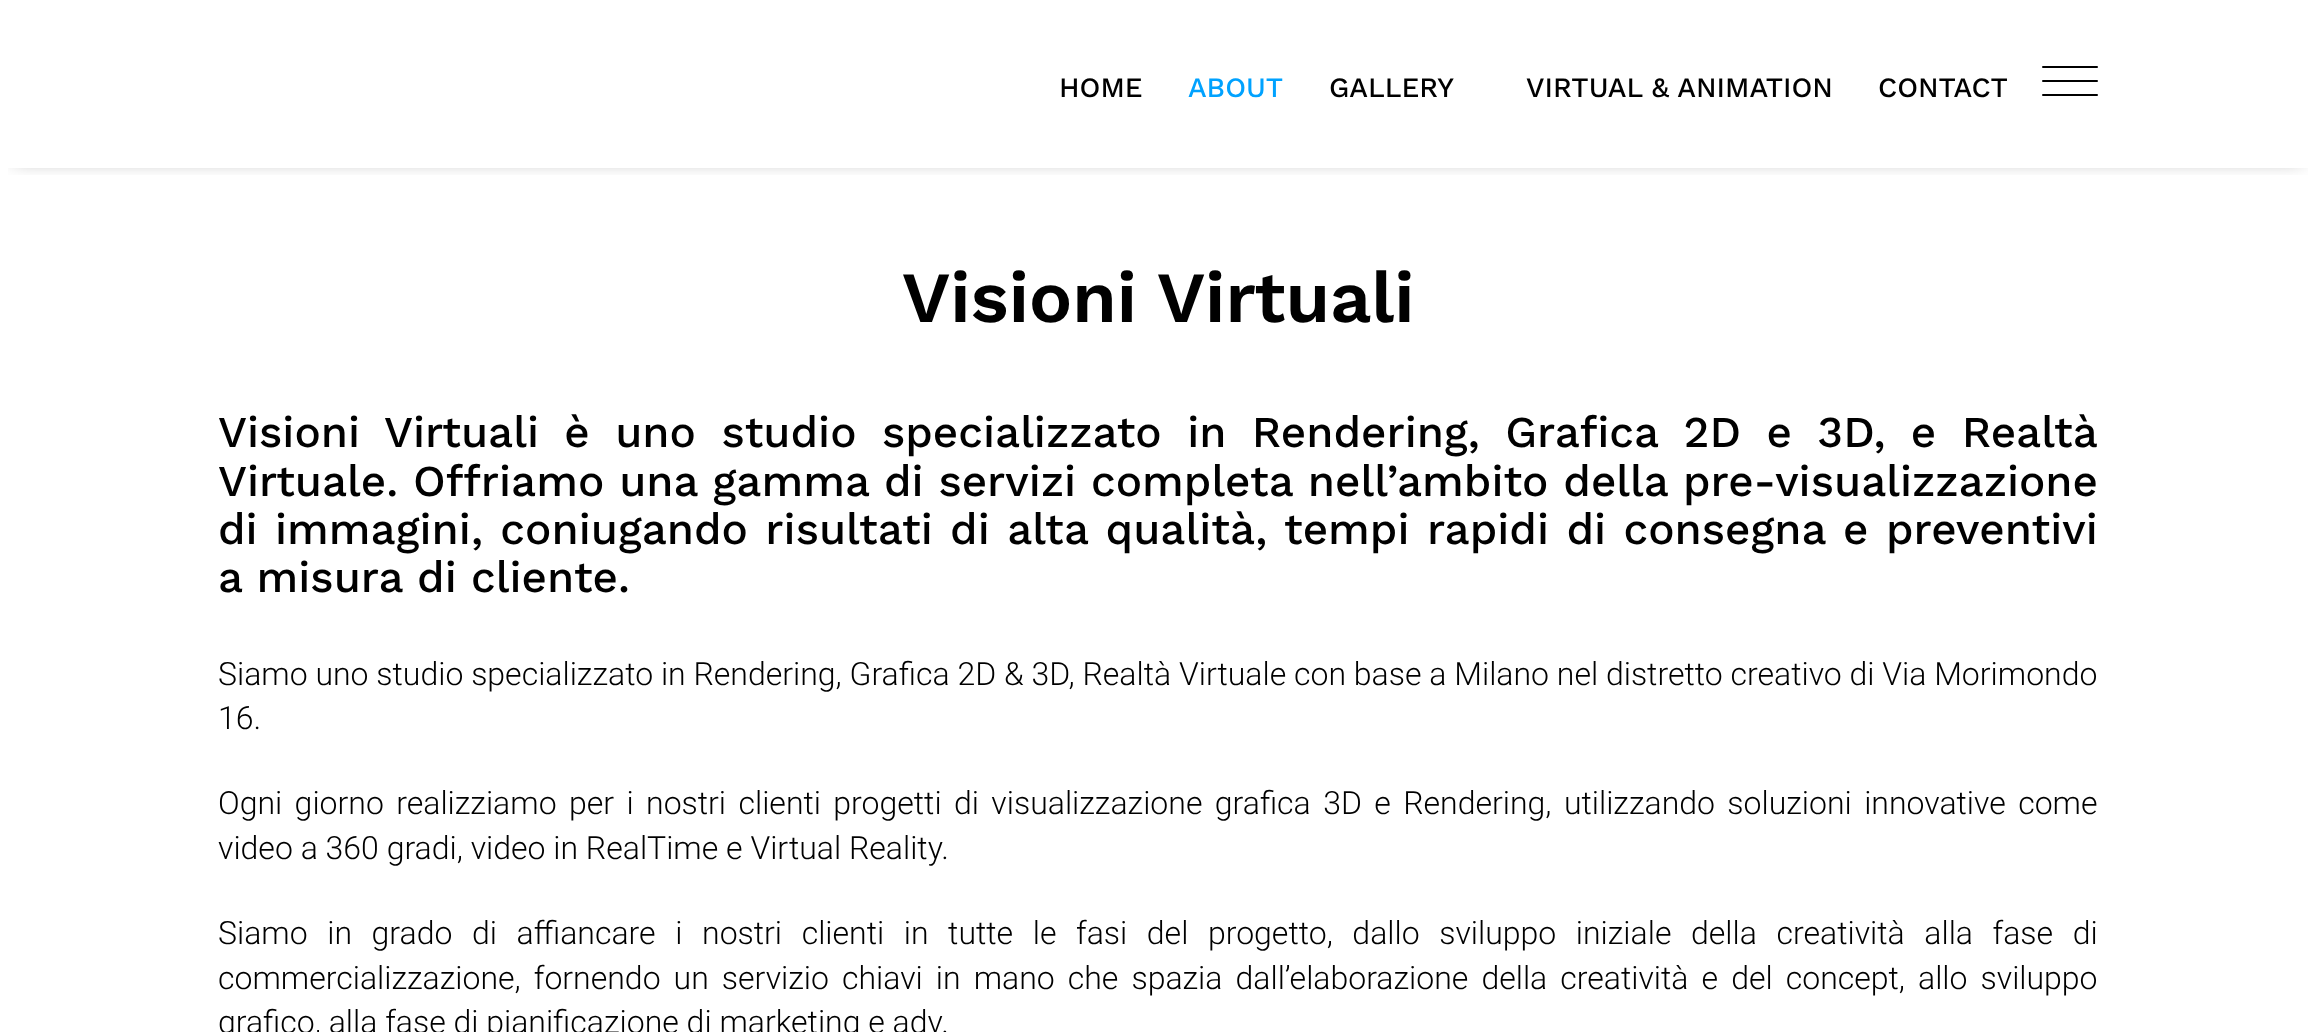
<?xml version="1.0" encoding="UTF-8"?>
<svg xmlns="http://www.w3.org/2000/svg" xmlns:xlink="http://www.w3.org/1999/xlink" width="2315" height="1032">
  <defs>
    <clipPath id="clip1"><rect x="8" y="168" width="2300" height="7" /></clipPath>
  </defs>
  <rect width="100%" height="100%" fill="#ffffff" />
  <g clip-path="url(#clip1)">
    <rect x="14" y="18" width="2288" height="140" fill="#000000" fill-opacity="0.5" filter="blur(10px)" />
  </g>
  <rect x="2042" y="80" width="56" height="2" rx="1" fill="#000000" />
  <rect x="2042" y="66" width="56" height="2" rx="1" fill="#000000" />
  <rect x="2042" y="94" width="56" height="2" rx="1" fill="#000000" />
  <text x="1059" y="97" style="font-family: Work Sans; font-size: 28px; font-weight: 500; fill: #000000">HOME</text>
  <text x="1188" y="97" style="font-family: Work Sans; font-size: 28px; font-weight: 500; fill: #00a2ff">ABOUT</text>
  <text x="1329" y="97" style="font-family: Work Sans; font-size: 28px; font-weight: 500; fill: #000000">GALLERY</text>
  <text x="1526" y="97" style="font-family: Work Sans; font-size: 28px; font-weight: 500; fill: #000000">VIRTUAL &amp; ANIMATION</text>
  <text x="1878" y="97" style="font-family: Work Sans; font-size: 28px; font-weight: 500; fill: #000000">CONTACT</text>
  <text x="902" y="322" style="font-family: Work Sans; font-size: 72px; font-weight: 600; fill: #000000">Visioni Virtuali</text>
  <text x="218" y="447" word-spacing="11.1" style="font-family: Work Sans; font-size: 44px; font-weight: 500; fill: #000000">Visioni Virtuali è uno studio specializzato in Rendering, Grafica 2D e 3D, e Realtà</text>
  <text x="218" y="496" word-spacing="0.5" style="font-family: Work Sans; font-size: 44px; font-weight: 500; fill: #000000">Virtuale. Offriamo una gamma di servizi completa nell’ambito della pre-visualizzazione</text>
  <text x="218" y="544" word-spacing="3.1" style="font-family: Work Sans; font-size: 44px; font-weight: 500; fill: #000000">di immagini, coniugando risultati di alta qualità, tempi rapidi di consegna e preventivi</text>
  <text x="218" y="592" style="font-family: Work Sans; font-size: 44px; font-weight: 500; fill: #000000">a misura di cliente.</text>
  <text x="218" y="685" style="font-family: Roboto; font-size: 32px; font-weight: 300; fill: #000000">Siamo uno studio specializzato in Rendering, Grafica 2D &amp; 3D, Realtà Virtuale con base a Milano nel distretto creativo di Via Morimondo</text>
  <text x="218" y="729" style="font-family: Roboto; font-size: 32px; font-weight: 300; fill: #000000">16.</text>
  <text x="218" y="814" word-spacing="4.6" style="font-family: Roboto; font-size: 32px; font-weight: 300; fill: #000000">Ogni giorno realizziamo per i nostri clienti progetti di visualizzazione grafica 3D e Rendering, utilizzando soluzioni innovative come</text>
  <text x="218" y="859" style="font-family: Roboto; font-size: 32px; font-weight: 300; fill: #000000">video a 360 gradi, video in RealTime e Virtual Reality.</text>
  <text x="218" y="944" word-spacing="11.8" style="font-family: Roboto; font-size: 32px; font-weight: 300; fill: #000000">Siamo in grado di affiancare i nostri clienti in tutte le fasi del progetto, dallo sviluppo iniziale della creatività alla fase di</text>
  <text x="218" y="989" word-spacing="5.25" style="font-family: Roboto; font-size: 32px; font-weight: 300; fill: #000000">commercializzazione, fornendo un servizio chiavi in mano che spazia dall’elaborazione della creatività e del concept, allo sviluppo</text>
  <text x="218" y="1033" style="font-family: Roboto; font-size: 32px; font-weight: 300; fill: #000000">grafico, alla fase di pianificazione di marketing e adv.</text>
</svg>
